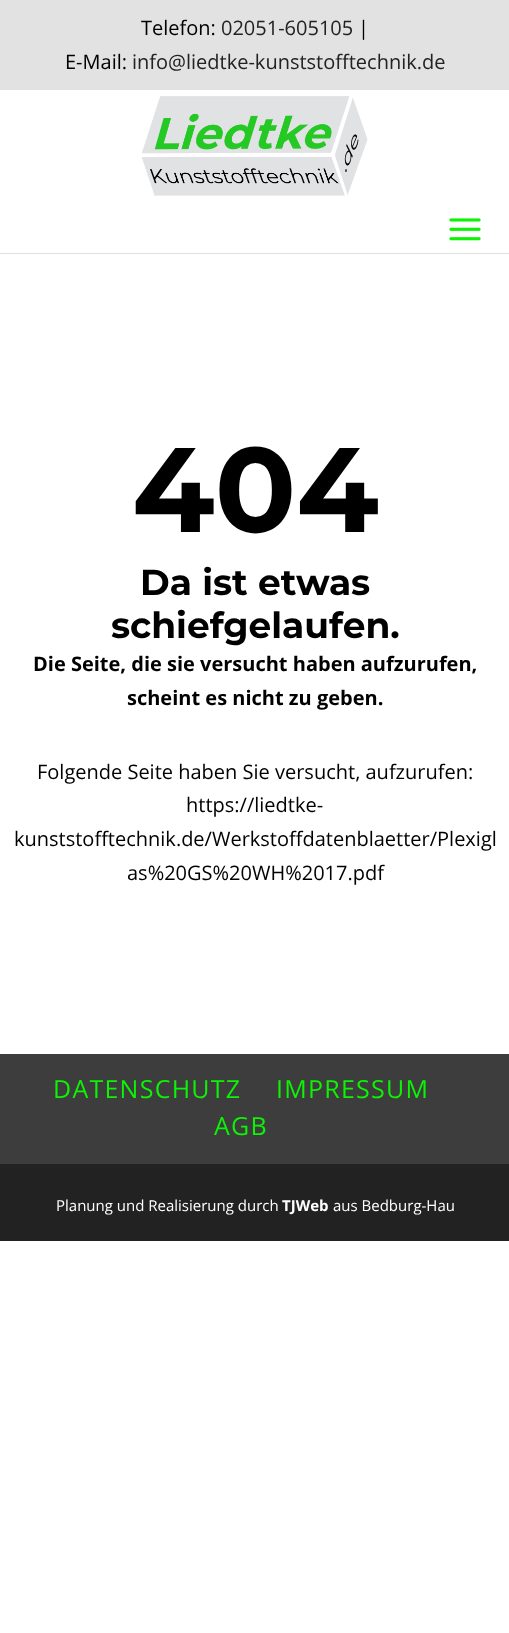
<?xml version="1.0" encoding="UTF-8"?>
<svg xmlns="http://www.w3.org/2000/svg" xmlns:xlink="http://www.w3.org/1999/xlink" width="509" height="1633">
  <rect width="100%" height="100%" fill="#ffffff" />
  <rect width="509" height="90" fill="#e2e2e2" />
  <rect y="253" width="509" height="1" fill="#dee0e0" />
  <image x="142" y="96" width="226" height="100" xlink:href="image1.png" />
  <image x="449" y="218" width="32" height="23" xlink:href="image2.png" />
  <rect y="1164" width="509" height="77" fill="#222222" />
  <rect y="1054" width="509" height="110" fill="#3d3d3d" />
  <text x="141" y="35" style="font-family: Open Sans; font-size: 20px; fill: #000000">Telefon:</text>
  <text x="221" y="35" style="font-family: Open Sans; font-size: 20px; fill: #222222">02051-605105</text>
  <text x="358" y="35" style="font-family: Open Sans; font-size: 20px; fill: #000000">|</text>
  <text x="65" y="69" style="font-family: Open Sans; font-size: 20px; fill: #000000">E-Mail:</text>
  <text x="132" y="69" style="font-family: Open Sans; font-size: 20px; fill: #222222">info@liedtke-kunststofftechnik.de</text>
  <text x="132" y="532" style="font-family: Montserrat; font-size: 120px; font-weight: 100; fill: #000000">404</text>
  <text x="140" y="595" style="font-family: Montserrat; font-size: 36px; font-weight: 100; fill: #000000">Da ist etwas</text>
  <text x="111" y="638" style="font-family: Montserrat; font-size: 36px; font-weight: 100; fill: #000000">schiefgelaufen.</text>
  <text x="33" y="671" style="font-family: Open Sans; font-size: 20px; font-weight: bold; fill: #000000">Die Seite, die sie versucht haben aufzurufen,</text>
  <text x="127" y="705" style="font-family: Open Sans; font-size: 20px; font-weight: bold; fill: #000000">scheint es nicht zu geben.</text>
  <text x="37" y="779" style="font-family: Open Sans; font-size: 20px; fill: #000000">Folgende Seite haben Sie versucht, aufzurufen:</text>
  <text x="186" y="812" style="font-family: Open Sans; font-size: 20px; fill: #000000">https://liedtke-</text>
  <text x="14" y="846" style="font-family: Open Sans; font-size: 20px; fill: #000000">kunststofftechnik.de/Werkstoffdatenblaetter/Plexigl</text>
  <text x="127" y="880" style="font-family: Open Sans; font-size: 20px; fill: #000000">as%20GS%20WH%2017.pdf</text>
  <text x="53" y="1098" style="font-family: Open Sans; font-size: 25px; letter-spacing: 1.25px; fill: #0df205">DATENSCHUTZ</text>
  <text x="276" y="1098" style="font-family: Open Sans; font-size: 25px; letter-spacing: 1.25px; fill: #0df205">IMPRESSUM</text>
  <text x="214" y="1135" style="font-family: Open Sans; font-size: 25px; letter-spacing: 1.25px; fill: #0df205">AGB</text>
  <text x="56" y="1211" style="font-family: Open Sans; font-size: 15px; fill: #ffffff">Planung und Realisierung durch</text>
  <text x="282" y="1211" style="font-family: Open Sans; font-size: 15px; font-weight: bold; fill: #ffffff">TJWeb</text>
  <text x="333" y="1211" style="font-family: Open Sans; font-size: 15px; fill: #ffffff">aus Bedburg-Hau</text>
</svg>
